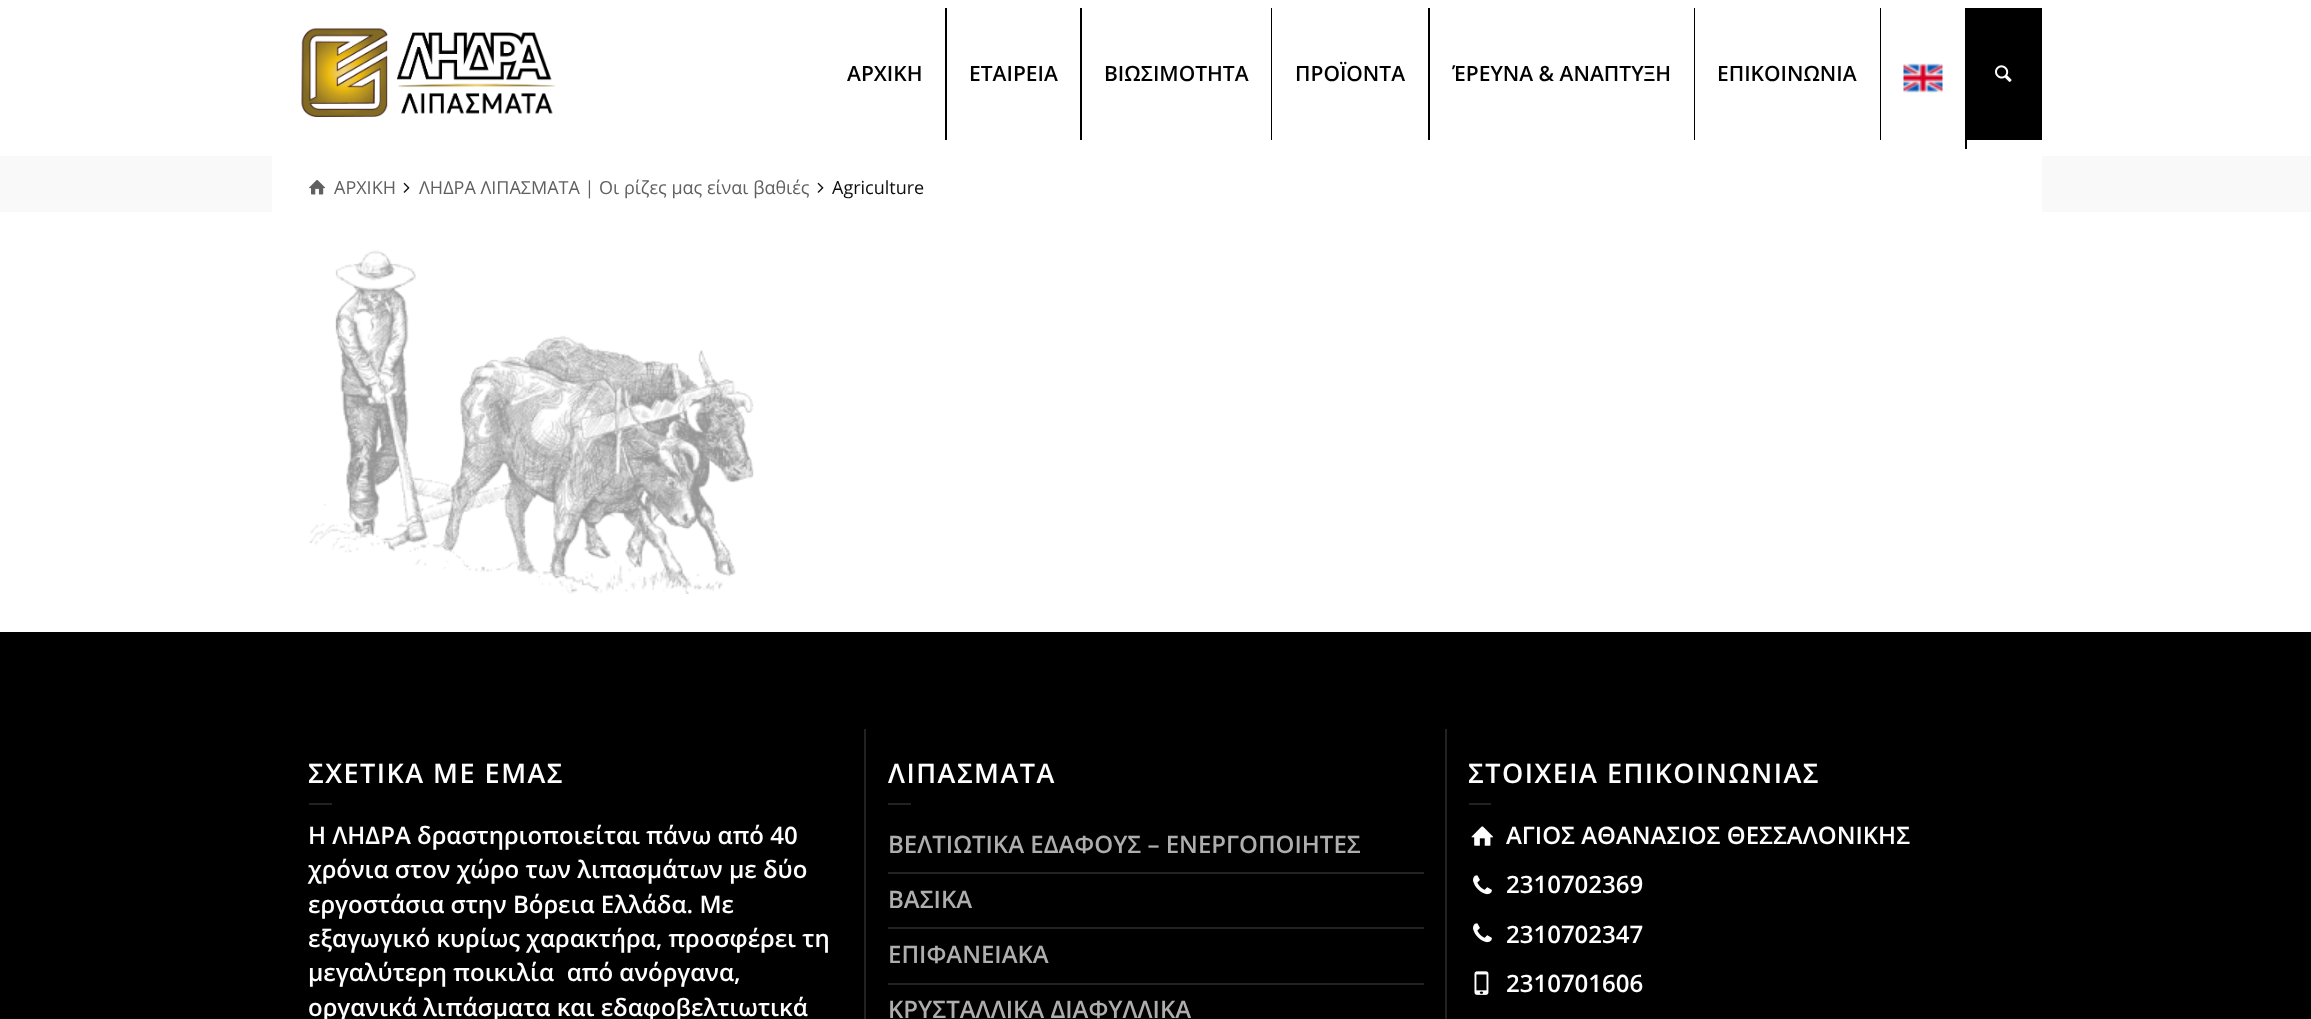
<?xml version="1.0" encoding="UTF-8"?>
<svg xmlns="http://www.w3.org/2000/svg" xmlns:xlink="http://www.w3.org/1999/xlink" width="2311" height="1019">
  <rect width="100%" height="100%" fill="#f9f9f9" />
  <rect width="2311" height="156" fill="#ffffff" />
  <image x="301" y="28" width="254" height="89" xlink:href="image1.png" />
  <rect x="945" y="8" width="2" height="132" fill="#000000" />
  <rect x="1080" y="8" width="2" height="132" fill="#000000" />
  <rect x="1271" y="8" width="1" height="132" fill="#000000" />
  <rect x="1428" y="8" width="2" height="132" fill="#000000" />
  <rect x="1694" y="8" width="1" height="132" fill="#000000" />
  <rect x="1880" y="8" width="1" height="132" fill="#000000" />
  <rect x="1965" y="8" width="2" height="141" fill="#000000" />
  <image x="1903" y="63" width="40" height="30" xlink:href="image2.png" />
  <rect x="1967" y="8" width="75" height="132" fill="#000000" />
  <image x="1995" y="65" width="17" height="17" xlink:href="image3.png" />
  <rect x="272" y="156" width="1770" height="56" fill="#ffffff" />
  <image x="309" y="180" width="17" height="15" xlink:href="image4.png" />
  <image x="403" y="182" width="7" height="11" xlink:href="image5.png" />
  <image x="817" y="182" width="7" height="11" xlink:href="image5.png" />
  <rect y="212" width="2311" height="420" fill="#ffffff" />
  <image x="309" y="250" width="445" height="344" xlink:href="image6.png" />
  <rect y="632" width="2311" height="387" fill="#000000" />
  <rect x="309" y="803" width="23" height="2" fill="#222222" />
  <rect x="864" y="729" width="2" height="290" fill="#222222" />
  <rect x="888" y="803" width="23" height="2" fill="#222222" />
  <rect x="888" y="872" width="536" height="2" fill="#222222" />
  <rect x="888" y="927" width="536" height="2" fill="#222222" />
  <rect x="888" y="983" width="536" height="2" fill="#222222" />
  <rect x="1445" y="729" width="2" height="290" fill="#222222" />
  <rect x="1469" y="803" width="22" height="2" fill="#222222" />
  <image x="1471" y="826" width="22" height="20" xlink:href="image7.png" />
  <image x="1473" y="875" width="19" height="20" xlink:href="image8.png" />
  <image x="1473" y="923" width="19" height="20" xlink:href="image8.png" />
  <image x="1474" y="971" width="15" height="24" xlink:href="image9.png" />
  <text x="847" y="81" style="font-family: Open Sans; font-size: 21px; font-weight: 600; fill: #000000">ΑΡΧΙΚΗ</text>
  <text x="969" y="81" style="font-family: Open Sans; font-size: 21px; font-weight: 600; fill: #000000">ΕΤΑΙΡΕΙΑ</text>
  <text x="1104" y="81" style="font-family: Open Sans; font-size: 21px; font-weight: 600; fill: #000000">ΒΙΩΣΙΜΟΤΗΤΑ</text>
  <text x="1295" y="81" style="font-family: Open Sans; font-size: 21px; font-weight: 600; fill: #000000">ΠΡΟΪΟΝΤΑ</text>
  <text x="1452" y="81" style="font-family: Open Sans; font-size: 21px; font-weight: 600; fill: #000000">ΈΡΕΥΝΑ &amp; ΑΝΑΠΤΥΞΗ</text>
  <text x="1717" y="81" style="font-family: Open Sans; font-size: 21px; font-weight: 600; fill: #000000">ΕΠΙΚΟΙΝΩΝΙΑ</text>
  <text x="334" y="194" style="font-family: Open Sans; font-size: 18px; fill: #606060">ΑΡΧΙΚΗ</text>
  <text x="419" y="194" style="font-family: Open Sans; font-size: 18px; fill: #606060">ΛΗΔΡΑ ΛΙΠΑΣΜΑΤΑ | Οι ρίζες μας είναι βαθιές</text>
  <text x="832" y="194" style="font-family: Open Sans; font-size: 18px; fill: #0c0c0c">Agriculture</text>
  <text x="308" y="783" style="font-family: Open Sans; font-size: 27px; font-weight: 600; letter-spacing: 1.5px; fill: #ffffff">ΣΧΕΤΙΚΑ ΜΕ ΕΜΑΣ</text>
  <text x="308" y="844" style="font-family: Open Sans; font-size: 24px; font-weight: 600; fill: #ffffff">H ΛΗΔΡΑ δραστηριοποιείται πάνω από 40</text>
  <text x="308" y="878" style="font-family: Open Sans; font-size: 24px; font-weight: 600; fill: #ffffff">χρόνια στον χώρο των λιπασμάτων με δύο</text>
  <text x="308" y="913" style="font-family: Open Sans; font-size: 24px; font-weight: 600; fill: #ffffff">εργοστάσια στην Βόρεια Ελλάδα. Με</text>
  <text x="308" y="947" style="font-family: Open Sans; font-size: 24px; font-weight: 600; fill: #ffffff">εξαγωγικό κυρίως χαρακτήρα, προσφέρει τη</text>
  <text x="308" y="981" style="font-family: Open Sans; font-size: 24px; font-weight: 600; fill: #ffffff" xml:space="preserve">μεγαλύτερη ποικιλία  από ανόργανα,</text>
  <text x="308" y="1016" style="font-family: Open Sans; font-size: 24px; font-weight: 600; fill: #ffffff">οργανικά λιπάσματα και εδαφοβελτιωτικά</text>
  <text x="888" y="783" style="font-family: Open Sans; font-size: 27px; font-weight: 600; letter-spacing: 1.5px; fill: #ffffff">ΛΙΠΑΣΜΑΤΑ</text>
  <text x="888" y="853" style="font-family: Open Sans; font-size: 24px; font-weight: 600; fill: #aeaeae">ΒΕΛΤΙΩΤΙΚΑ ΕΔΑΦΟΥΣ – ΕΝΕΡΓΟΠΟΙΗΤΕΣ</text>
  <text x="888" y="908" style="font-family: Open Sans; font-size: 24px; font-weight: 600; fill: #aeaeae">ΒΑΣΙΚΑ</text>
  <text x="888" y="963" style="font-family: Open Sans; font-size: 24px; font-weight: 600; fill: #aeaeae">ΕΠΙΦΑΝΕΙΑΚΑ</text>
  <text x="888" y="1018" style="font-family: Open Sans; font-size: 24px; font-weight: 600; fill: #aeaeae">ΚΡΥΣΤΑΛΛΙΚΑ ΔΙΑΦΥΛΛΙΚΑ</text>
  <text x="1468" y="783" style="font-family: Open Sans; font-size: 27px; font-weight: 600; letter-spacing: 1.5px; fill: #ffffff">ΣΤΟΙΧΕΙΑ ΕΠΙΚΟΙΝΩΝΙΑΣ</text>
  <text x="1506" y="844" style="font-family: Open Sans; font-size: 24px; font-weight: 600; fill: #ffffff">ΑΓΙΟΣ ΑΘΑΝΑΣΙΟΣ ΘΕΣΣΑΛΟΝΙΚΗΣ</text>
  <text x="1506" y="893" style="font-family: Open Sans; font-size: 24px; font-weight: 600; fill: #ffffff">2310702369</text>
  <text x="1506" y="943" style="font-family: Open Sans; font-size: 24px; font-weight: 600; fill: #ffffff">2310702347</text>
  <text x="1506" y="992" style="font-family: Open Sans; font-size: 24px; font-weight: 600; fill: #ffffff">2310701606</text>
</svg>
